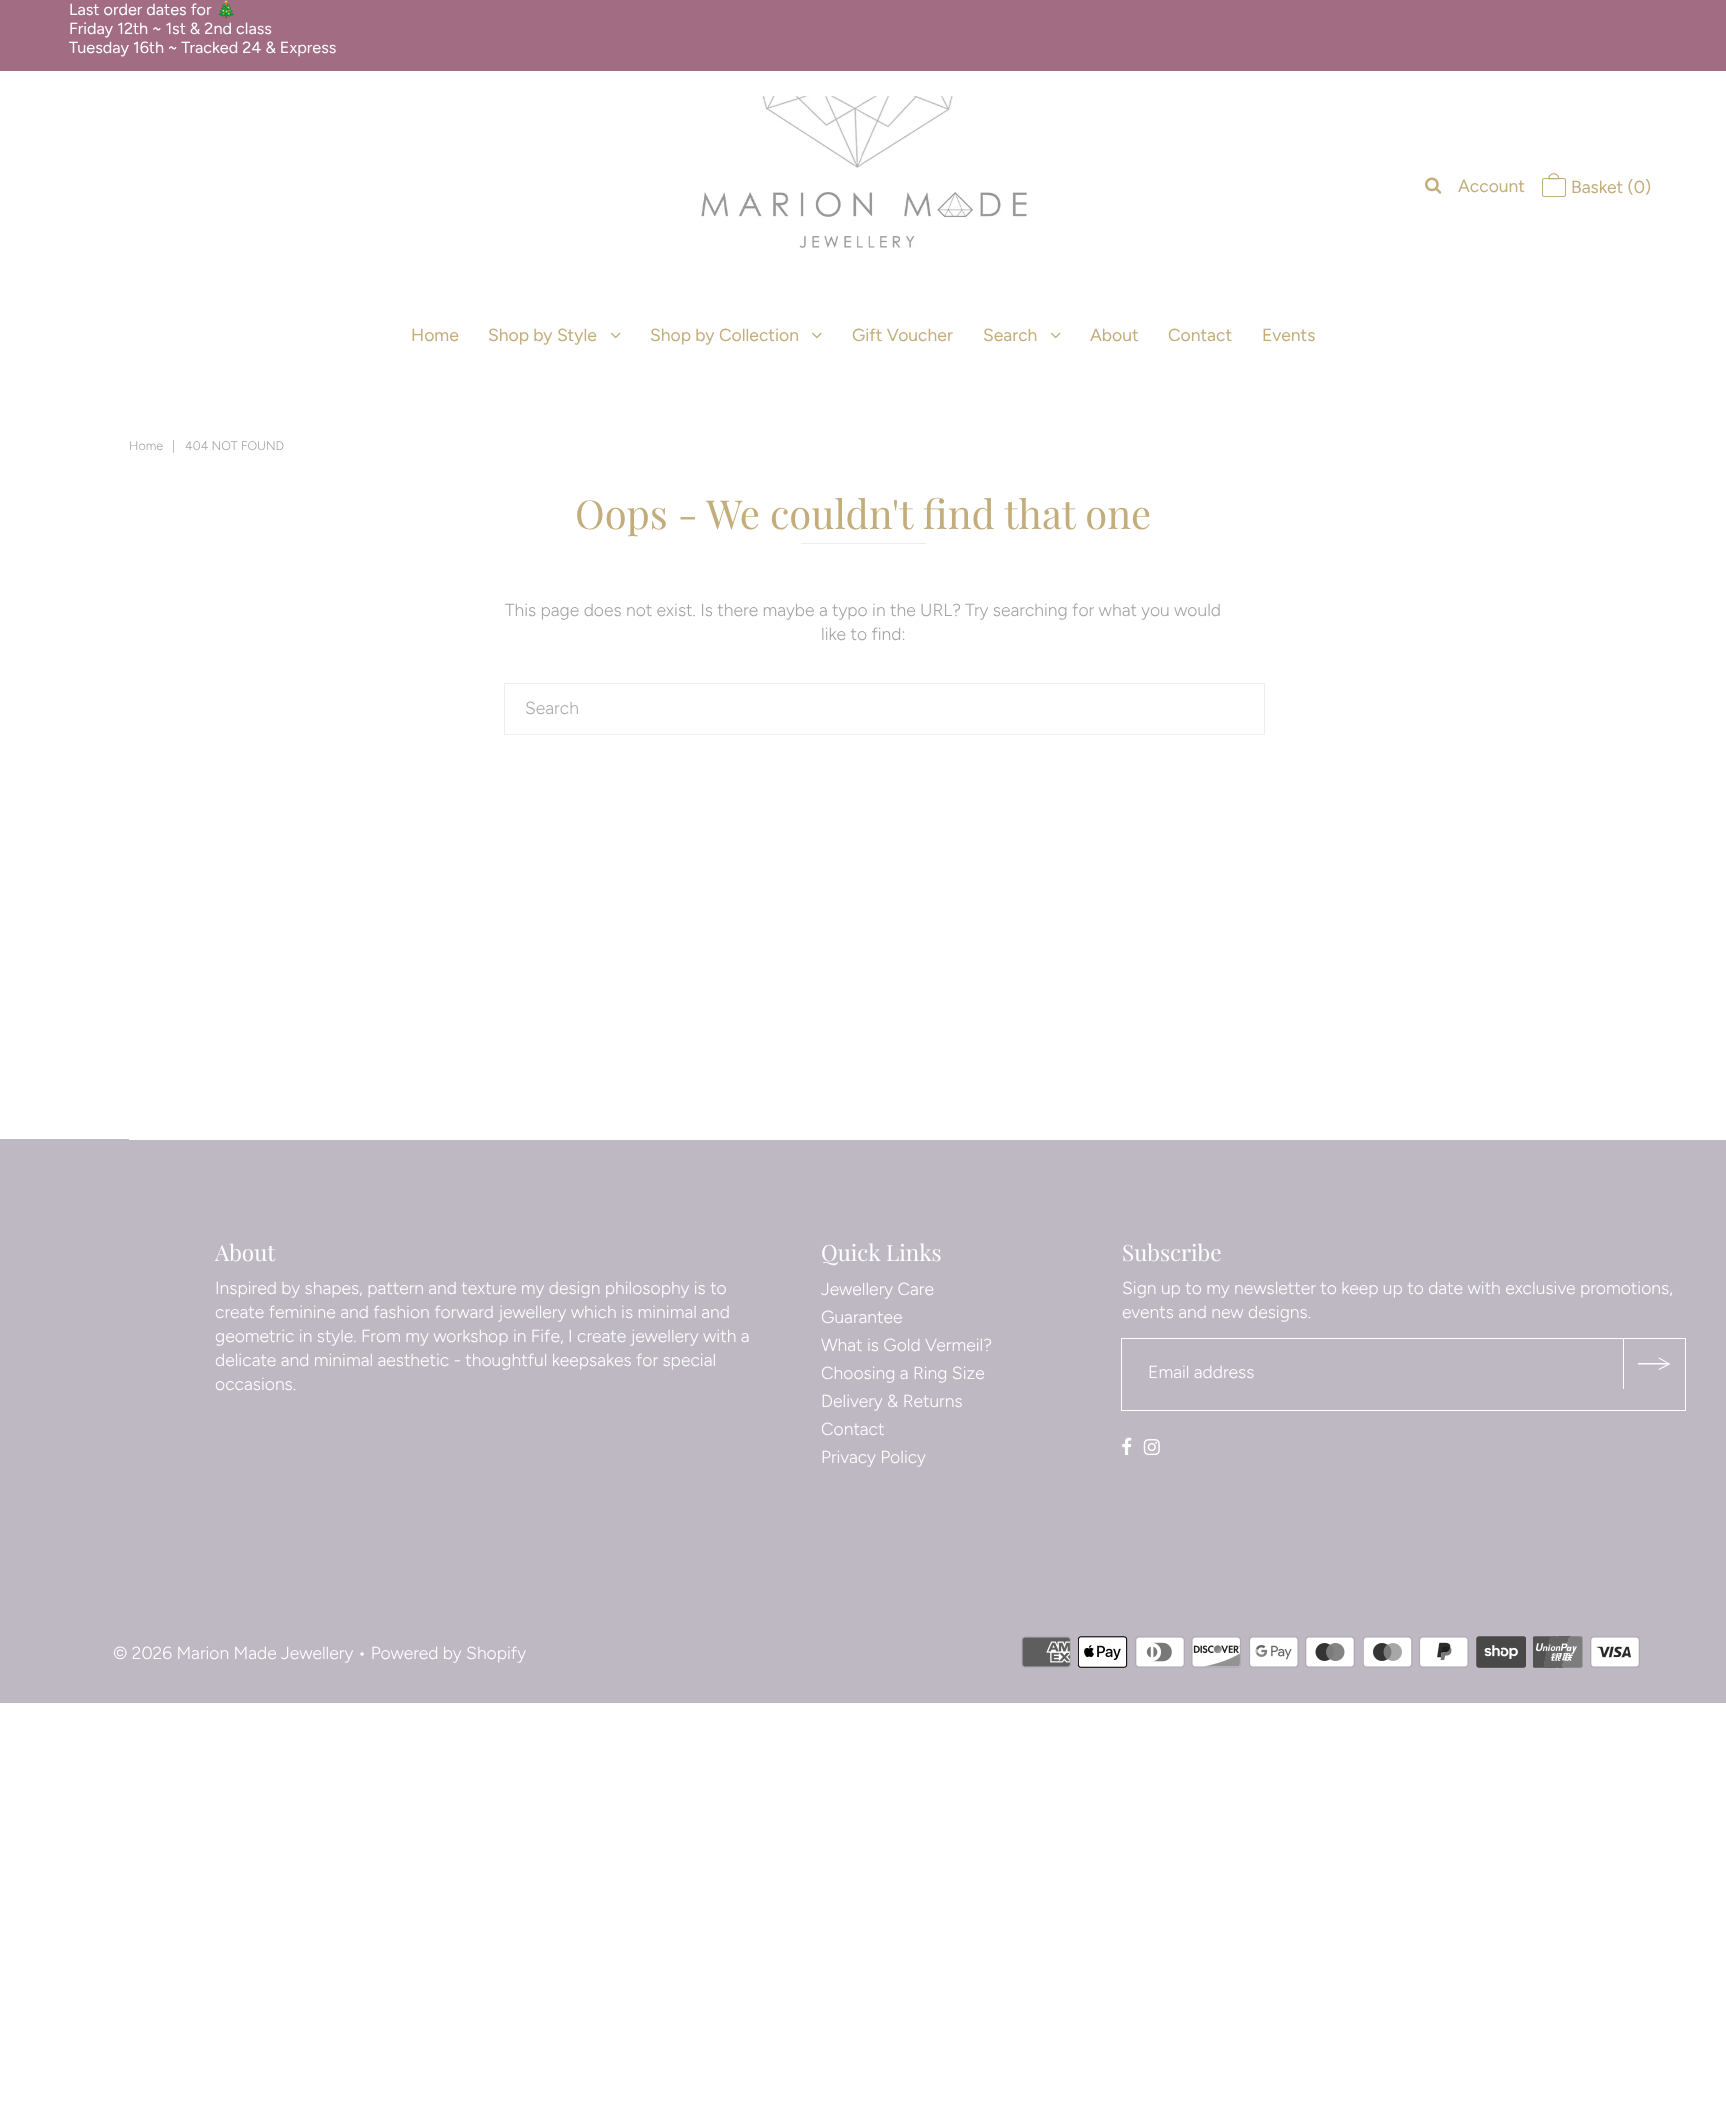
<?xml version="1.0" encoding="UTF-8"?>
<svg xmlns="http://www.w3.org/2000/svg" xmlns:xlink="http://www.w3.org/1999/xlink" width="1726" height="2121">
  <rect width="100%" height="100%" fill="#ffffff" />
  <rect width="1726" height="71" fill="#a26d82" />
  <image x="701" y="96" width="326" height="153" xlink:href="image1.png" />
  <image x="1425" y="177" width="17" height="17" xlink:href="image2.png" />
  <image x="1542" y="173" width="24" height="24" xlink:href="image3.png" />
  <image x="610" y="332" width="11" height="7" xlink:href="image4.png" />
  <image x="812" y="332" width="10" height="7" xlink:href="image5.png" />
  <image x="1050" y="332" width="11" height="7" xlink:href="image4.png" />
  <rect x="801" y="543" width="125" height="1" fill="#eeeeee" />
  <rect x="504.5" y="683.5" width="760" height="51" fill="none" stroke="#eeeeee" />
  <rect y="1139" width="1726" height="564" fill="#bdb8c2" />
  <rect x="129" y="1139" width="1597" height="1" fill="#ffffff" />
  <rect x="1121.5" y="1338.5" width="564" height="72" fill="none" stroke="#ffffff" />
  <rect x="1623" y="1339" width="1" height="50" fill="#ffffff" />
  <path d="M 1659 1357.5 l 11.5 6.5 l -11.5 6 l -0.5 -1 l 8.5 -4.5 h -29 v -1.5 h 29 l -8.5 -4.5 z" fill="#ffffff" />
  <image x="1122" y="1437" width="10" height="19" xlink:href="image6.png" />
  <image x="1143" y="1439" width="17" height="17" xlink:href="image7.png" />
  <image x="1021" y="1636" width="50" height="32" xlink:href="image8.png" />
  <image x="1078" y="1636" width="50" height="32" xlink:href="image9.png" />
  <image x="1135" y="1636" width="50" height="32" xlink:href="image10.png" />
  <image x="1191" y="1636" width="50" height="32" xlink:href="image11.png" />
  <image x="1249" y="1636" width="50" height="32" xlink:href="image12.png" />
  <image x="1305" y="1636" width="50" height="32" xlink:href="image13.png" />
  <image x="1363" y="1636" width="50" height="32" xlink:href="image14.png" />
  <image x="1419" y="1636" width="50" height="32" xlink:href="image15.png" />
  <image x="1476" y="1636" width="50" height="32" xlink:href="image16.png" />
  <image x="1533" y="1636" width="50" height="32" xlink:href="image17.png" />
  <image x="1590" y="1636" width="50" height="32" xlink:href="image18.png" />
  <text x="69" y="15" style="font-family: Figtree; font-size: 16.25px; fill: #ffffff">Last order dates for</text>
  <text x="216" y="15" style="font-family: Noto Color Emoji; font-size: 16.25px; fill: #ffffff">🎄</text>
  <text x="69" y="34" style="font-family: Figtree; font-size: 16.25px; fill: #ffffff">Friday 12th ~ 1st &amp; 2nd class</text>
  <text x="69" y="53" style="font-family: Figtree; font-size: 16.25px; fill: #ffffff">Tuesday 16th ~ Tracked 24 &amp; Express</text>
  <text x="1458" y="192" style="font-family: Figtree; font-size: 17.5px; fill: #c2ad7b">Account</text>
  <text x="1571" y="193" style="font-family: Figtree; font-size: 17.5px; fill: #c2ad7b">Basket (0)</text>
  <text x="411" y="341" style="font-family: Figtree; font-size: 17.5px; fill: #c2ad7b">Home</text>
  <text x="488" y="341" style="font-family: Figtree; font-size: 17.5px; fill: #c2ad7b">Shop by Style</text>
  <text x="650" y="341" style="font-family: Figtree; font-size: 17.5px; fill: #c2ad7b">Shop by Collection</text>
  <text x="852" y="341" style="font-family: Figtree; font-size: 17.5px; fill: #c2ad7b">Gift Voucher</text>
  <text x="983" y="341" style="font-family: Figtree; font-size: 17.5px; fill: #c2ad7b">Search</text>
  <text x="1090" y="341" style="font-family: Figtree; font-size: 17.5px; fill: #c2ad7b">About</text>
  <text x="1168" y="341" style="font-family: Figtree; font-size: 17.5px; fill: #c2ad7b">Contact</text>
  <text x="1262" y="341" style="font-family: Figtree; font-size: 17.5px; fill: #c2ad7b">Events</text>
  <text x="129" y="450" style="font-family: Figtree; font-size: 12.5px; font-weight: 300; fill: #a4a4a4">Home</text>
  <text x="172" y="450" style="font-family: Figtree; font-size: 12.5px; font-weight: 300; fill: #a4a4a4">|</text>
  <text x="185" y="450" style="font-family: Figtree; font-size: 12.5px; font-weight: 300; fill: #a4a4a4">404 NOT FOUND</text>
  <text x="575" y="529" style="font-family: Playfair Display; font-size: 40px; fill: #c2ad7b">Oops - We couldn't find that one</text>
  <text x="505" y="616" style="font-family: Figtree; font-size: 17.5px; font-weight: 300; fill: #a4a4a4">This page does not exist. Is there maybe a typo in the URL? Try searching for what you would</text>
  <text x="821" y="640" style="font-family: Figtree; font-size: 17.5px; font-weight: 300; fill: #a4a4a4">like to find:</text>
  <text x="525" y="714" style="font-family: Figtree; font-size: 17.5px; font-weight: 300; fill: #aaaaaa">Search</text>
  <text x="215" y="1261" style="font-family: Playfair Display; font-size: 22.5px; fill: #ffffff">About</text>
  <text x="215" y="1294" style="font-family: Figtree; font-size: 17.5px; font-weight: 300; fill: #ffffff">Inspired by shapes, pattern and texture my design philosophy is to</text>
  <text x="215" y="1318" style="font-family: Figtree; font-size: 17.5px; font-weight: 300; fill: #ffffff">create feminine and fashion forward jewellery which is minimal and</text>
  <text x="215" y="1342" style="font-family: Figtree; font-size: 17.5px; font-weight: 300; fill: #ffffff">geometric in style. From my workshop in Fife, I create jewellery with a</text>
  <text x="215" y="1366" style="font-family: Figtree; font-size: 17.5px; font-weight: 300; fill: #ffffff">delicate and minimal aesthetic - thoughtful keepsakes for special</text>
  <text x="215" y="1390" style="font-family: Figtree; font-size: 17.5px; font-weight: 300; fill: #ffffff">occasions.</text>
  <text x="821" y="1261" style="font-family: Playfair Display; font-size: 22.5px; fill: #ffffff">Quick Links</text>
  <text x="821" y="1295" style="font-family: Figtree; font-size: 17.5px; font-weight: 300; fill: #ffffff">Jewellery Care</text>
  <text x="821" y="1323" style="font-family: Figtree; font-size: 17.5px; font-weight: 300; fill: #ffffff">Guarantee</text>
  <text x="821" y="1351" style="font-family: Figtree; font-size: 17.5px; font-weight: 300; fill: #ffffff">What is Gold Vermeil?</text>
  <text x="821" y="1379" style="font-family: Figtree; font-size: 17.5px; font-weight: 300; fill: #ffffff">Choosing a Ring Size</text>
  <text x="821" y="1407" style="font-family: Figtree; font-size: 17.5px; font-weight: 300; fill: #ffffff">Delivery &amp; Returns</text>
  <text x="821" y="1435" style="font-family: Figtree; font-size: 17.5px; font-weight: 300; fill: #ffffff">Contact</text>
  <text x="821" y="1463" style="font-family: Figtree; font-size: 17.5px; font-weight: 300; fill: #ffffff">Privacy Policy</text>
  <text x="1122" y="1261" style="font-family: Playfair Display; font-size: 22.5px; fill: #ffffff">Subscribe</text>
  <text x="1122" y="1294" style="font-family: Figtree; font-size: 17.5px; font-weight: 300; fill: #ffffff">Sign up to my newsletter to keep up to date with exclusive promotions,</text>
  <text x="1122" y="1318" style="font-family: Figtree; font-size: 17.5px; font-weight: 300; fill: #ffffff">events and new designs.</text>
  <text x="1148" y="1378" style="font-family: Figtree; font-size: 17.5px; font-weight: 300; fill: #ffffff">Email address</text>
  <text x="113" y="1659" style="font-family: Figtree; font-size: 17.5px; font-weight: 300; fill: #ffffff">© 2026 Marion Made Jewellery • Powered by Shopify</text>
</svg>
